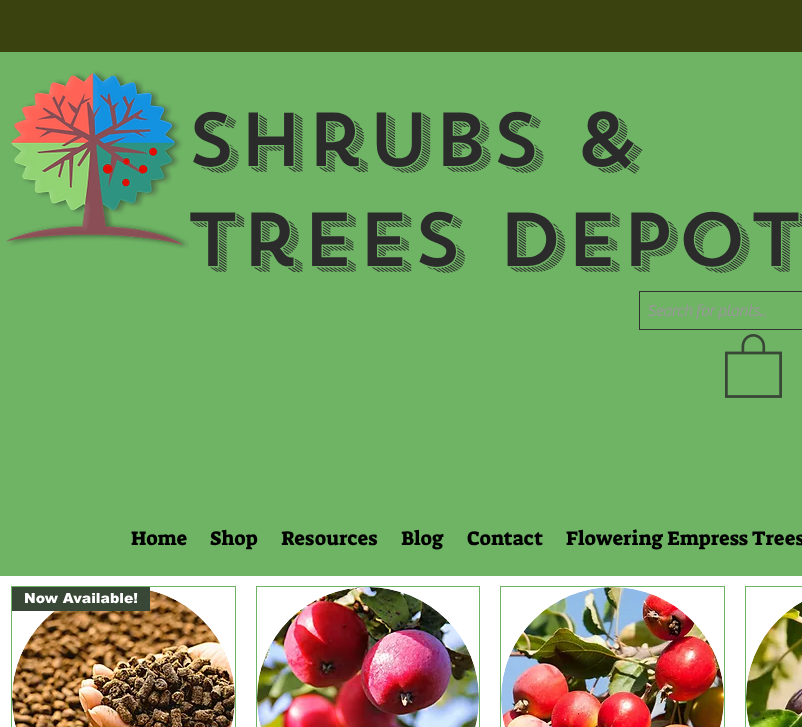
<?xml version="1.0" encoding="UTF-8"?>
<svg xmlns="http://www.w3.org/2000/svg" xmlns:xlink="http://www.w3.org/1999/xlink" width="802" height="727">
  <rect width="100%" height="100%" fill="#ffffff" />
  <rect y="52" width="802" height="524" fill="#6fb465" />
  <rect width="802" height="52" fill="#3a4310" />
  <image x="6" y="70" width="183" height="179" xlink:href="image1.png" />
  <rect x="639.5" y="291.5" width="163" height="38" fill="none" stroke="#323232" />
  <image x="725" y="334" width="57" height="64" xlink:href="image2.png" />
  <rect x="11.5" y="586.5" width="224" height="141" fill="none" stroke="#6fb465" />
  <image x="12" y="590" width="223" height="137" xlink:href="image3.png" />
  <rect x="12" y="587" width="138" height="24" fill="#394737" />
  <rect x="256.5" y="586.5" width="223" height="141" fill="none" stroke="#6fb465" />
  <image x="257" y="587" width="222" height="140" xlink:href="image4.png" />
  <rect x="500.5" y="586.5" width="224" height="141" fill="none" stroke="#6fb465" />
  <image x="501" y="587" width="223" height="140" xlink:href="image5.png" />
  <rect x="745.5" y="586.5" width="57" height="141" fill="none" stroke="#6fb465" />
  <image x="746" y="602" width="56" height="125" xlink:href="image6.png" />
  <text x="186" y="166" style="font-family: 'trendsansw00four'; font-size: 76px; font-weight: 500; letter-spacing: 0.75px; fill: #2b2b2b">Shrubs &amp;</text>
  <text x="186" y="266" style="font-family: 'trendsansw00four'; font-size: 76px; font-weight: 500; letter-spacing: 0.75px; fill: #2b2b2b">Trees Depot</text>
  <text x="647" y="316" style="font-family: 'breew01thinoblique'; font-size: 16px; font-weight: bold; fill: #999999">Search for plants..</text>
  <text x="131" y="545" style="font-family: Suez One; font-size: 20px; fill: #000000">Home</text>
  <text x="210" y="545" style="font-family: Suez One; font-size: 20px; fill: #000000">Shop</text>
  <text x="281" y="545" style="font-family: Suez One; font-size: 20px; fill: #000000">Resources</text>
  <text x="401" y="545" style="font-family: Suez One; font-size: 20px; fill: #000000">Blog</text>
  <text x="467" y="545" style="font-family: Suez One; font-size: 20px; fill: #000000">Contact</text>
  <text x="566" y="545" style="font-family: Suez One; font-size: 20px; fill: #000000">Flowering Empress Trees</text>
  <text x="24" y="603" style="font-family: arial; font-size: 14px; font-weight: 900; fill: #ffffff">Now Available!</text>
</svg>
